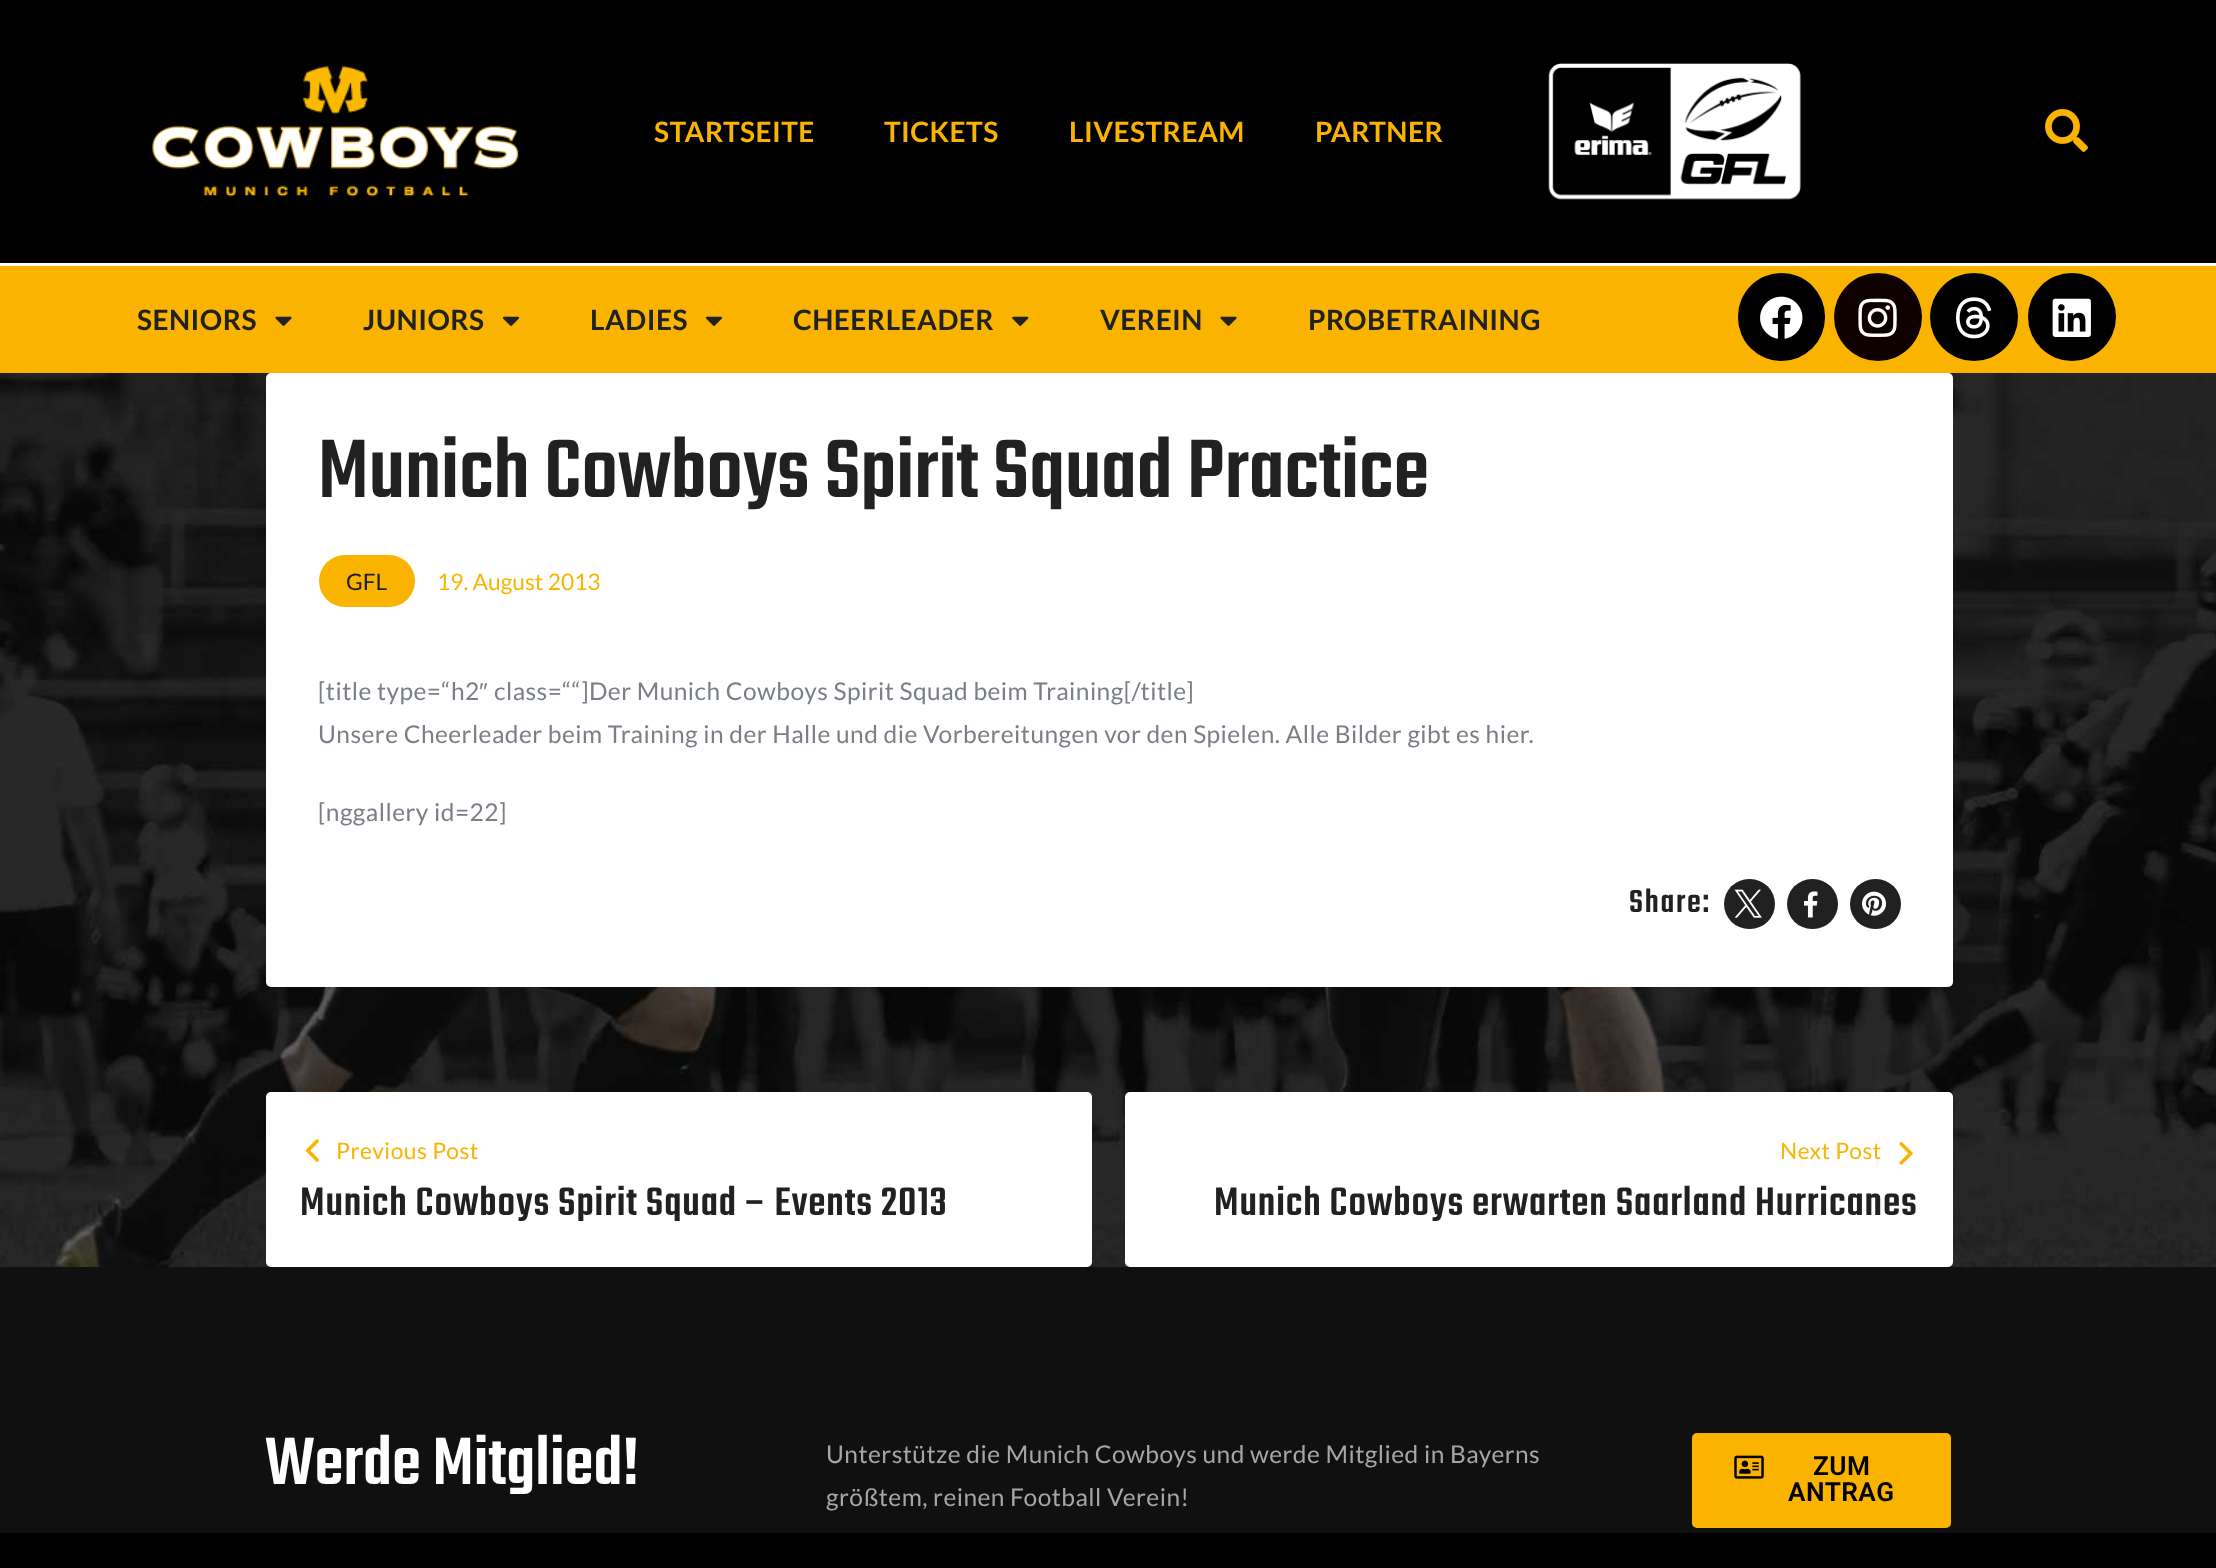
<?xml version="1.0" encoding="UTF-8"?>
<svg xmlns="http://www.w3.org/2000/svg" xmlns:xlink="http://www.w3.org/1999/xlink" width="2216" height="1568">
  <rect width="100%" height="100%" fill="#ffffff" />
  <image x="0" y="373" width="2216" height="894" xlink:href="image1.png" />
  <rect width="2216" height="263" fill="#000000" />
  <image x="152" y="65" width="367" height="132" xlink:href="image2.png" />
  <image x="1548" y="63" width="253" height="137" xlink:href="image3.png" />
  <image x="2045" y="109" width="43" height="43" xlink:href="image4.png" />
  <rect y="266" width="2216" height="107" fill="#fab400" />
  <image x="275" y="316" width="17" height="10" xlink:href="image5.png" />
  <image x="502" y="316" width="18" height="10" xlink:href="image6.png" />
  <image x="705" y="316" width="18" height="10" xlink:href="image6.png" />
  <image x="1012" y="316" width="17" height="10" xlink:href="image7.png" />
  <image x="1220" y="316" width="17" height="10" xlink:href="image5.png" />
  <rect x="1738" y="273" width="87" height="88" rx="43.5" fill="#000000" />
  <image x="1760" y="296" width="43" height="43" xlink:href="image8.png" />
  <circle cx="1878" cy="317" r="44" fill="#0f0000" />
  <image x="1858" y="298" width="39" height="39" xlink:href="image9.png" />
  <circle cx="1974" cy="317" r="44" fill="#000000" />
  <image x="1956" y="297" width="36" height="42" xlink:href="image10.png" />
  <circle cx="2072" cy="317" r="44" fill="#000000" />
  <image x="2052" y="298" width="39" height="39" xlink:href="image11.png" />
  <rect x="266" y="373" width="1687" height="614" rx="5" fill="#ffffff" />
  <rect x="319" y="555" width="96" height="52" rx="26" fill="#fab400" />
  <rect x="1724" y="879" width="51" height="50" rx="25" fill="#212121" />
  <image x="1734" y="889" width="28" height="29" xlink:href="image12.png" />
  <rect x="1787" y="879" width="51" height="50" rx="25" fill="#212121" />
  <image x="1804" y="891" width="14" height="27" xlink:href="image13.png" />
  <rect x="1850" y="879" width="51" height="50" rx="25" fill="#212121" />
  <image x="1862" y="891" width="24" height="25" xlink:href="image14.png" />
  <rect x="266" y="1092" width="826" height="175" rx="5" fill="#ffffff" />
  <image x="305" y="1139" width="14" height="23" xlink:href="image15.png" />
  <rect x="1125" y="1092" width="828" height="175" rx="5" fill="#ffffff" />
  <image x="1899" y="1142" width="14" height="23" xlink:href="image16.png" />
  <rect y="1267" width="2216" height="266" fill="#101010" />
  <rect x="1692" y="1433" width="259" height="95" rx="5" fill="#fab400" />
  <image x="1734" y="1455" width="30" height="24" xlink:href="image17.png" />
  <rect y="1533" width="2216" height="35" fill="#000000" />
  <text x="654" y="142" style="font-family: Lato; font-size: 28px; font-weight: bold; letter-spacing: 0.46px; fill: #fab400">STARTSEITE</text>
  <text x="884" y="142" style="font-family: Lato; font-size: 28px; font-weight: bold; letter-spacing: 0.46px; fill: #fab400">TICKETS</text>
  <text x="1069" y="142" style="font-family: Lato; font-size: 28px; font-weight: bold; letter-spacing: 0.46px; fill: #fab400">LIVESTREAM</text>
  <text x="1315" y="142" style="font-family: Lato; font-size: 28px; font-weight: bold; letter-spacing: 0.46px; fill: #fab400">PARTNER</text>
  <text x="137" y="330" style="font-family: Lato; font-size: 28px; font-weight: bold; letter-spacing: 0.46px; fill: #212121">SENIORS</text>
  <text x="363" y="330" style="font-family: Lato; font-size: 28px; font-weight: bold; letter-spacing: 0.46px; fill: #212121">JUNIORS</text>
  <text x="590" y="330" style="font-family: Lato; font-size: 28px; font-weight: bold; letter-spacing: 0.46px; fill: #212121">LADIES</text>
  <text x="793" y="330" style="font-family: Lato; font-size: 28px; font-weight: bold; letter-spacing: 0.46px; fill: #212121">CHEERLEADER</text>
  <text x="1100" y="330" style="font-family: Lato; font-size: 28px; font-weight: bold; letter-spacing: 0.46px; fill: #212121">VEREIN</text>
  <text x="1308" y="330" style="font-family: Lato; font-size: 28px; font-weight: bold; letter-spacing: 0.46px; fill: #212121">PROBETRAINING</text>
  <text x="318" y="497" style="font-family: Teko; font-size: 90.6px; font-weight: 500; fill: #212121">Munich Cowboys Spirit Squad Practice</text>
  <text x="346" y="590" style="font-family: Lato; font-size: 22.75px; fill: #212121">GFL</text>
  <text x="437" y="590" style="font-family: Lato; font-size: 22.75px; fill: #fab400">19. August 2013</text>
  <text x="318" y="700" style="font-family: Lato; font-size: 24.5px; letter-spacing: 0.46px; fill: #797e87">[title type=“h2</text>
  <text x="479" y="700" style="font-family: Liberation Sans; font-size: 24.5px; letter-spacing: 0.46px; fill: #797e87">″</text>
  <text x="494" y="700" style="font-family: Lato; font-size: 24.5px; letter-spacing: 0.46px; fill: #797e87">class=““]Der Munich Cowboys Spirit Squad beim Training[/title]</text>
  <text x="318" y="743" style="font-family: Lato; font-size: 24.5px; letter-spacing: 0.46px; fill: #797e87">Unsere Cheerleader beim Training in der Halle und die Vorbereitungen vor den Spielen. Alle Bilder gibt es hier.</text>
  <text x="318" y="821" style="font-family: Lato; font-size: 24.5px; letter-spacing: 0.46px; fill: #797e87">[nggallery id=22]</text>
  <text x="1629" y="912" style="font-family: Teko; font-size: 35px; font-weight: 500; letter-spacing: 1.75px; fill: #212121">Share:</text>
  <text x="336" y="1159" style="font-family: Lato; font-size: 22.75px; letter-spacing: 0.5px; fill: #fab400">Previous Post</text>
  <text x="300" y="1215" style="font-family: Teko; font-size: 43.75px; font-weight: 500; letter-spacing: 0.9px; fill: #212121">Munich Cowboys Spirit Squad – Events 2013</text>
  <text x="1780" y="1159" style="font-family: Lato; font-size: 22.75px; letter-spacing: 0.5px; fill: #fab400">Next Post</text>
  <text x="1214" y="1215" style="font-family: Teko; font-size: 43.75px; font-weight: 500; letter-spacing: 0.9px; fill: #212121">Munich Cowboys erwarten Saarland Hurricanes</text>
  <text x="265" y="1484" style="font-family: Teko; font-size: 73.5px; font-weight: 500; fill: #ffffff">Werde Mitglied!</text>
  <text x="826" y="1463" style="font-family: Lato; font-size: 24.5px; letter-spacing: 0.46px; fill: #a6a6a6">Unterstütze die Munich Cowboys und werde Mitglied in Bayerns</text>
  <text x="826" y="1506" style="font-family: Lato; font-size: 24.5px; letter-spacing: 0.46px; fill: #a6a6a6">größtem, reinen Football Verein!</text>
  <text x="1813" y="1475" style="font-family: Roboto; font-size: 26.25px; font-weight: 600; letter-spacing: 0.46px; fill: #000000">ZUM</text>
  <text x="1788" y="1501" style="font-family: Roboto; font-size: 26.25px; font-weight: 600; letter-spacing: 0.46px; fill: #000000">ANTRAG</text>
</svg>
